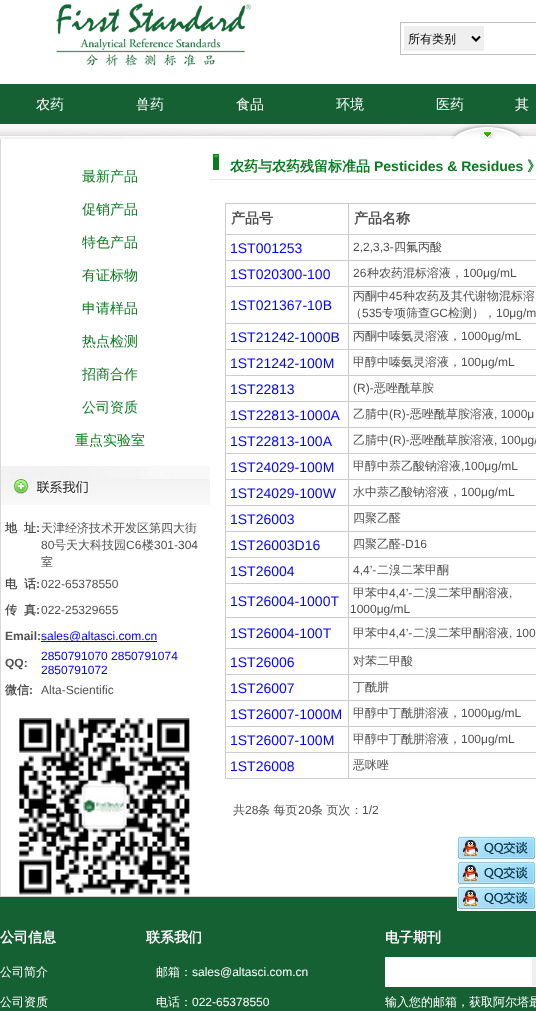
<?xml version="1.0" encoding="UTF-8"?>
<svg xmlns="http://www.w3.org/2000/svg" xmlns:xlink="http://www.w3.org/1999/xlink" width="536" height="1011">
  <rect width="100%" height="100%" fill="#ffffff" />
  <image x="56" y="3" width="196" height="63" xlink:href="image1.png" />
  <rect x="400.5" y="22.5" width="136" height="32" fill="none" stroke="#c0c0c0" />
  <rect x="404" y="26" width="80" height="25" fill="#efefef" />
  <path d="M 472 36.5 l 4 4 l 4 -4" fill="none" stroke="#000000" stroke-width="2" />
  <rect y="84" width="536" height="40" fill="#156133" />
  <image x="0" y="124" width="536" height="15" xlink:href="image2.png" />
  <rect y="139" width="1" height="757" fill="#d8d8d8" />
  <image x="1" y="466" width="209" height="39" xlink:href="image3.png" />
  <rect x="41" y="641" width="116" height="1" fill="#0000ff" />
  <image x="16" y="718" width="174" height="177" xlink:href="image4.png" />
  <image x="210" y="153" width="326" height="27" xlink:href="image5.png" />
  <rect x="225" y="203" width="311" height="576" fill="#cccccc" />
  <rect x="226" y="204" width="122" height="30" fill="#ffffff" />
  <rect x="349" y="204" width="187" height="30" fill="#ffffff" />
  <rect x="226" y="235" width="122" height="25" fill="#ffffff" />
  <rect x="349" y="235" width="187" height="25" fill="#ffffff" />
  <rect x="226" y="261" width="122" height="25" fill="#ffffff" />
  <rect x="349" y="261" width="187" height="25" fill="#ffffff" />
  <rect x="226" y="287" width="122" height="36" fill="#ffffff" />
  <rect x="349" y="287" width="187" height="36" fill="#ffffff" />
  <rect x="226" y="324" width="122" height="25" fill="#ffffff" />
  <rect x="349" y="324" width="187" height="25" fill="#ffffff" />
  <rect x="226" y="350" width="122" height="25" fill="#ffffff" />
  <rect x="349" y="350" width="187" height="25" fill="#ffffff" />
  <rect x="226" y="376" width="122" height="25" fill="#ffffff" />
  <rect x="349" y="376" width="187" height="25" fill="#ffffff" />
  <rect x="226" y="402" width="122" height="25" fill="#ffffff" />
  <rect x="349" y="402" width="187" height="25" fill="#ffffff" />
  <rect x="226" y="428" width="122" height="25" fill="#ffffff" />
  <rect x="349" y="428" width="187" height="25" fill="#ffffff" />
  <rect x="226" y="454" width="122" height="25" fill="#ffffff" />
  <rect x="349" y="454" width="187" height="25" fill="#ffffff" />
  <rect x="226" y="480" width="122" height="25" fill="#ffffff" />
  <rect x="349" y="480" width="187" height="25" fill="#ffffff" />
  <rect x="226" y="506" width="122" height="25" fill="#ffffff" />
  <rect x="349" y="506" width="187" height="25" fill="#ffffff" />
  <rect x="226" y="532" width="122" height="25" fill="#ffffff" />
  <rect x="349" y="532" width="187" height="25" fill="#ffffff" />
  <rect x="226" y="558" width="122" height="25" fill="#ffffff" />
  <rect x="349" y="558" width="187" height="25" fill="#ffffff" />
  <rect x="226" y="584" width="122" height="33" fill="#ffffff" />
  <rect x="349" y="584" width="187" height="33" fill="#ffffff" />
  <rect x="226" y="618" width="122" height="30" fill="#ffffff" />
  <rect x="349" y="618" width="187" height="30" fill="#ffffff" />
  <rect x="226" y="649" width="122" height="25" fill="#ffffff" />
  <rect x="349" y="649" width="187" height="25" fill="#ffffff" />
  <rect x="226" y="675" width="122" height="25" fill="#ffffff" />
  <rect x="349" y="675" width="187" height="25" fill="#ffffff" />
  <rect x="226" y="701" width="122" height="25" fill="#ffffff" />
  <rect x="349" y="701" width="187" height="25" fill="#ffffff" />
  <rect x="226" y="727" width="122" height="25" fill="#ffffff" />
  <rect x="349" y="727" width="187" height="25" fill="#ffffff" />
  <rect x="226" y="753" width="122" height="25" fill="#ffffff" />
  <rect x="349" y="753" width="187" height="25" fill="#ffffff" />
  <image x="457" y="836" width="79" height="25" xlink:href="image6.png" />
  <image x="457" y="861" width="79" height="25" xlink:href="image6.png" />
  <rect y="897" width="536" height="114" fill="#156133" />
  <image x="457" y="886" width="79" height="25" xlink:href="image6.png" />
  <rect y="896" width="457" height="1" fill="#d4d4d4" />
  <rect x="385" y="957" width="146" height="30" fill="#ffffff" />
  <rect x="531.5" y="957.5" width="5" height="29" fill="#efefef" stroke="#ffffff" />
  <text x="408" y="43" style="font-family: WenQuanYi Zen Hei; font-size: 12px; font-weight: 500; fill: #000000">所有类别</text>
  <text x="36" y="109" style="font-family: WenQuanYi Zen Hei; font-size: 14px; font-weight: 500; fill: #ffffff">农药</text>
  <text x="136" y="109" style="font-family: WenQuanYi Zen Hei; font-size: 14px; font-weight: 500; fill: #ffffff">兽药</text>
  <text x="236" y="109" style="font-family: WenQuanYi Zen Hei; font-size: 14px; font-weight: 500; fill: #ffffff">食品</text>
  <text x="336" y="109" style="font-family: WenQuanYi Zen Hei; font-size: 14px; font-weight: 500; fill: #ffffff">环境</text>
  <text x="436" y="109" style="font-family: WenQuanYi Zen Hei; font-size: 14px; font-weight: 500; fill: #ffffff">医药</text>
  <text x="515" y="109" style="font-family: WenQuanYi Zen Hei; font-size: 14px; font-weight: 500; fill: #ffffff">其</text>
  <text x="82" y="181" style="font-family: WenQuanYi Zen Hei; font-size: 14px; font-weight: 500; fill: #0b7a1e">最新产品</text>
  <text x="82" y="214" style="font-family: WenQuanYi Zen Hei; font-size: 14px; font-weight: 500; fill: #0b7a1e">促销产品</text>
  <text x="82" y="247" style="font-family: WenQuanYi Zen Hei; font-size: 14px; font-weight: 500; fill: #0b7a1e">特色产品</text>
  <text x="82" y="280" style="font-family: WenQuanYi Zen Hei; font-size: 14px; font-weight: 500; fill: #0b7a1e">有证标物</text>
  <text x="82" y="313" style="font-family: WenQuanYi Zen Hei; font-size: 14px; font-weight: 500; fill: #0b7a1e">申请样品</text>
  <text x="82" y="346" style="font-family: WenQuanYi Zen Hei; font-size: 14px; font-weight: 500; fill: #0b7a1e">热点检测</text>
  <text x="82" y="379" style="font-family: WenQuanYi Zen Hei; font-size: 14px; font-weight: 500; fill: #0b7a1e">招商合作</text>
  <text x="82" y="412" style="font-family: WenQuanYi Zen Hei; font-size: 14px; font-weight: 500; fill: #0b7a1e">公司资质</text>
  <text x="75" y="445" style="font-family: WenQuanYi Zen Hei; font-size: 14px; font-weight: 500; fill: #0b7a1e">重点实验室</text>
  <text x="5" y="532" style="font-family: WenQuanYi Zen Hei; font-size: 12px; font-weight: bold; fill: #505050">地</text>
  <text x="24" y="532" style="font-family: WenQuanYi Zen Hei; font-size: 12px; font-weight: bold; fill: #505050">址</text>
  <text x="36" y="532" style="font-family: Liberation Sans; font-size: 12px; font-weight: bold; fill: #505050">:</text>
  <text x="41" y="532" style="font-family: WenQuanYi Zen Hei; font-size: 12px; font-weight: 500; fill: #505050">天津经济技术开发区第四大街</text>
  <text x="41" y="549" style="font-family: Liberation Sans; font-size: 12px; fill: #505050">80</text>
  <text x="54" y="549" style="font-family: WenQuanYi Zen Hei; font-size: 12px; font-weight: 500; fill: #505050">号天大科技园</text>
  <text x="126" y="549" style="font-family: Liberation Sans; font-size: 12px; fill: #505050">C6</text>
  <text x="142" y="549" style="font-family: WenQuanYi Zen Hei; font-size: 12px; font-weight: 500; fill: #505050">楼</text>
  <text x="154" y="549" style="font-family: Liberation Sans; font-size: 12px; fill: #505050">301-304</text>
  <text x="41" y="566" style="font-family: WenQuanYi Zen Hei; font-size: 12px; font-weight: 500; fill: #505050">室</text>
  <text x="5" y="588" style="font-family: WenQuanYi Zen Hei; font-size: 12px; font-weight: bold; fill: #505050">电</text>
  <text x="24" y="588" style="font-family: WenQuanYi Zen Hei; font-size: 12px; font-weight: bold; fill: #505050">话</text>
  <text x="36" y="588" style="font-family: Liberation Sans; font-size: 12px; font-weight: bold; fill: #505050">:</text>
  <text x="41" y="588" style="font-family: Liberation Sans; font-size: 12px; fill: #505050">022-65378550</text>
  <text x="5" y="614" style="font-family: WenQuanYi Zen Hei; font-size: 12px; font-weight: bold; fill: #505050">传</text>
  <text x="24" y="614" style="font-family: WenQuanYi Zen Hei; font-size: 12px; font-weight: bold; fill: #505050">真</text>
  <text x="36" y="614" style="font-family: Liberation Sans; font-size: 12px; font-weight: bold; fill: #505050">:</text>
  <text x="41" y="614" style="font-family: Liberation Sans; font-size: 12px; fill: #505050">022-25329655</text>
  <text x="5" y="640" style="font-family: Liberation Sans; font-size: 12px; font-weight: bold; fill: #505050">Email:</text>
  <text x="41" y="640" style="font-family: Liberation Sans; font-size: 12px; fill: #0000ff">sales@altasci.com.cn</text>
  <text x="5" y="667" style="font-family: Liberation Sans; font-size: 12px; font-weight: bold; fill: #505050">QQ:</text>
  <text x="41" y="660" style="font-family: Liberation Sans; font-size: 12px; fill: #0000ee">2850791070 2850791074</text>
  <text x="41" y="674" style="font-family: Liberation Sans; font-size: 12px; fill: #0000ee">2850791072</text>
  <text x="5" y="694" style="font-family: WenQuanYi Zen Hei; font-size: 12px; font-weight: bold; fill: #505050">微信</text>
  <text x="29" y="694" style="font-family: Liberation Sans; font-size: 12px; font-weight: bold; fill: #505050">:</text>
  <text x="41" y="694" style="font-family: Liberation Sans; font-size: 12px; fill: #505050">Alta-Scientific</text>
  <text x="230" y="171" style="font-family: WenQuanYi Zen Hei; font-size: 14px; font-weight: bold; fill: #0b7a1e">农药与农药残留标准品</text>
  <text x="374" y="171" style="font-family: Liberation Sans; font-size: 14px; font-weight: bold; fill: #0b7a1e">Pesticides &amp; Residues</text>
  <text x="527" y="171" style="font-family: WenQuanYi Zen Hei; font-size: 14px; font-weight: bold; fill: #0b7a1e">》</text>
  <text x="231" y="223" style="font-family: WenQuanYi Zen Hei; font-size: 14px; font-weight: bold; fill: #505050">产品号</text>
  <text x="354" y="223" style="font-family: WenQuanYi Zen Hei; font-size: 14px; font-weight: bold; fill: #505050">产品名称</text>
  <text x="230" y="253" style="font-family: Liberation Sans; font-size: 14px; fill: #0000ff">1ST001253</text>
  <text x="353" y="251" style="font-family: Liberation Sans; font-size: 12px; fill: #505050">2,2,3,3-</text>
  <text x="394" y="251" style="font-family: WenQuanYi Zen Hei; font-size: 12px; font-weight: 500; fill: #505050">四氟丙酸</text>
  <text x="230" y="279" style="font-family: Liberation Sans; font-size: 14px; fill: #0000ff">1ST020300-100</text>
  <text x="353" y="277" style="font-family: Liberation Sans; font-size: 12px; fill: #505050">26</text>
  <text x="367" y="277" style="font-family: WenQuanYi Zen Hei; font-size: 12px; font-weight: 500; fill: #505050">种农药混标溶液，</text>
  <text x="463" y="277" style="font-family: Liberation Sans; font-size: 12px; fill: #505050">100μg/mL</text>
  <text x="230" y="310" style="font-family: Liberation Sans; font-size: 14px; fill: #0000ff">1ST021367-10B</text>
  <text x="353" y="300" style="font-family: WenQuanYi Zen Hei; font-size: 12px; font-weight: 500; fill: #505050">丙酮中</text>
  <text x="389" y="300" style="font-family: Liberation Sans; font-size: 12px; fill: #505050">45</text>
  <text x="403" y="300" style="font-family: WenQuanYi Zen Hei; font-size: 12px; font-weight: 500; fill: #505050">种农药及其代谢物混标溶</text>
  <text x="350" y="317" style="font-family: WenQuanYi Zen Hei; font-size: 12px; font-weight: 500; fill: #505050">（</text>
  <text x="362" y="317" style="font-family: Liberation Sans; font-size: 12px; fill: #505050">535</text>
  <text x="382" y="317" style="font-family: WenQuanYi Zen Hei; font-size: 12px; font-weight: 500; fill: #505050">专项筛查</text>
  <text x="430" y="317" style="font-family: Liberation Sans; font-size: 12px; fill: #505050">GC</text>
  <text x="448" y="317" style="font-family: WenQuanYi Zen Hei; font-size: 12px; font-weight: 500; fill: #505050">检测），</text>
  <text x="496" y="317" style="font-family: Liberation Sans; font-size: 12px; fill: #505050">10μg/m</text>
  <text x="230" y="342" style="font-family: Liberation Sans; font-size: 14px; fill: #0000ff">1ST21242-1000B</text>
  <text x="353" y="340" style="font-family: WenQuanYi Zen Hei; font-size: 12px; font-weight: 500; fill: #505050">丙酮中嗪氨灵溶液，</text>
  <text x="461" y="340" style="font-family: Liberation Sans; font-size: 12px; fill: #505050">1000μg/mL</text>
  <text x="230" y="368" style="font-family: Liberation Sans; font-size: 14px; fill: #0000ff">1ST21242-100M</text>
  <text x="353" y="366" style="font-family: WenQuanYi Zen Hei; font-size: 12px; font-weight: 500; fill: #505050">甲醇中嗪氨灵溶液，</text>
  <text x="461" y="366" style="font-family: Liberation Sans; font-size: 12px; fill: #505050">100μg/mL</text>
  <text x="230" y="394" style="font-family: Liberation Sans; font-size: 14px; fill: #0000ff">1ST22813</text>
  <text x="353" y="392" style="font-family: Liberation Sans; font-size: 12px; fill: #505050">(R)-</text>
  <text x="374" y="392" style="font-family: WenQuanYi Zen Hei; font-size: 12px; font-weight: 500; fill: #505050">恶唑酰草胺</text>
  <text x="230" y="420" style="font-family: Liberation Sans; font-size: 14px; fill: #0000ff">1ST22813-1000A</text>
  <text x="353" y="418" style="font-family: WenQuanYi Zen Hei; font-size: 12px; font-weight: 500; fill: #505050">乙腈中</text>
  <text x="389" y="418" style="font-family: Liberation Sans; font-size: 12px; fill: #505050">(R)-</text>
  <text x="410" y="418" style="font-family: WenQuanYi Zen Hei; font-size: 12px; font-weight: 500; fill: #505050">恶唑酰草胺溶液</text>
  <text x="494" y="418" style="font-family: Liberation Sans; font-size: 12px; fill: #505050">, 1000μ</text>
  <text x="230" y="446" style="font-family: Liberation Sans; font-size: 14px; fill: #0000ff">1ST22813-100A</text>
  <text x="353" y="444" style="font-family: WenQuanYi Zen Hei; font-size: 12px; font-weight: 500; fill: #505050">乙腈中</text>
  <text x="389" y="444" style="font-family: Liberation Sans; font-size: 12px; fill: #505050">(R)-</text>
  <text x="410" y="444" style="font-family: WenQuanYi Zen Hei; font-size: 12px; font-weight: 500; fill: #505050">恶唑酰草胺溶液</text>
  <text x="494" y="444" style="font-family: Liberation Sans; font-size: 12px; fill: #505050">, 100μg/</text>
  <text x="230" y="472" style="font-family: Liberation Sans; font-size: 14px; fill: #0000ff">1ST24029-100M</text>
  <text x="353" y="470" style="font-family: WenQuanYi Zen Hei; font-size: 12px; font-weight: 500; fill: #505050">甲醇中萘乙酸钠溶液</text>
  <text x="461" y="470" style="font-family: Liberation Sans; font-size: 12px; fill: #505050">,100μg/mL</text>
  <text x="230" y="498" style="font-family: Liberation Sans; font-size: 14px; fill: #0000ff">1ST24029-100W</text>
  <text x="353" y="496" style="font-family: WenQuanYi Zen Hei; font-size: 12px; font-weight: 500; fill: #505050">水中萘乙酸钠溶液，</text>
  <text x="461" y="496" style="font-family: Liberation Sans; font-size: 12px; fill: #505050">100μg/mL</text>
  <text x="230" y="524" style="font-family: Liberation Sans; font-size: 14px; fill: #0000ff">1ST26003</text>
  <text x="353" y="522" style="font-family: WenQuanYi Zen Hei; font-size: 12px; font-weight: 500; fill: #505050">四聚乙醛</text>
  <text x="230" y="550" style="font-family: Liberation Sans; font-size: 14px; fill: #0000ff">1ST26003D16</text>
  <text x="353" y="548" style="font-family: WenQuanYi Zen Hei; font-size: 12px; font-weight: 500; fill: #505050">四聚乙醛</text>
  <text x="401" y="548" style="font-family: Liberation Sans; font-size: 12px; fill: #505050">-D16</text>
  <text x="230" y="576" style="font-family: Liberation Sans; font-size: 14px; fill: #0000ff">1ST26004</text>
  <text x="353" y="574" style="font-family: Liberation Sans; font-size: 12px; fill: #505050">4,4’-</text>
  <text x="377" y="574" style="font-family: WenQuanYi Zen Hei; font-size: 12px; font-weight: 500; fill: #505050">二溴二苯甲酮</text>
  <text x="230" y="606" style="font-family: Liberation Sans; font-size: 14px; fill: #0000ff">1ST26004-1000T</text>
  <text x="353" y="597" style="font-family: WenQuanYi Zen Hei; font-size: 12px; font-weight: 500; fill: #505050">甲苯中</text>
  <text x="389" y="597" style="font-family: Liberation Sans; font-size: 12px; fill: #505050">4,4’-</text>
  <text x="413" y="597" style="font-family: WenQuanYi Zen Hei; font-size: 12px; font-weight: 500; fill: #505050">二溴二苯甲酮溶液</text>
  <text x="509" y="597" style="font-family: Liberation Sans; font-size: 12px; fill: #505050">,</text>
  <text x="350" y="613" style="font-family: Liberation Sans; font-size: 12px; fill: #505050">1000μg/mL</text>
  <text x="230" y="638" style="font-family: Liberation Sans; font-size: 14px; fill: #0000ff">1ST26004-100T</text>
  <text x="353" y="637" style="font-family: WenQuanYi Zen Hei; font-size: 12px; font-weight: 500; fill: #505050">甲苯中</text>
  <text x="389" y="637" style="font-family: Liberation Sans; font-size: 12px; fill: #505050">4,4’-</text>
  <text x="413" y="637" style="font-family: WenQuanYi Zen Hei; font-size: 12px; font-weight: 500; fill: #505050">二溴二苯甲酮溶液</text>
  <text x="509" y="637" style="font-family: Liberation Sans; font-size: 12px; fill: #505050">, 100</text>
  <text x="230" y="667" style="font-family: Liberation Sans; font-size: 14px; fill: #0000ff">1ST26006</text>
  <text x="353" y="665" style="font-family: WenQuanYi Zen Hei; font-size: 12px; font-weight: 500; fill: #505050">对苯二甲酸</text>
  <text x="230" y="693" style="font-family: Liberation Sans; font-size: 14px; fill: #0000ff">1ST26007</text>
  <text x="353" y="691" style="font-family: WenQuanYi Zen Hei; font-size: 12px; font-weight: 500; fill: #505050">丁酰肼</text>
  <text x="230" y="719" style="font-family: Liberation Sans; font-size: 14px; fill: #0000ff">1ST26007-1000M</text>
  <text x="353" y="717" style="font-family: WenQuanYi Zen Hei; font-size: 12px; font-weight: 500; fill: #505050">甲醇中丁酰肼溶液，</text>
  <text x="461" y="717" style="font-family: Liberation Sans; font-size: 12px; fill: #505050">1000μg/mL</text>
  <text x="230" y="745" style="font-family: Liberation Sans; font-size: 14px; fill: #0000ff">1ST26007-100M</text>
  <text x="353" y="743" style="font-family: WenQuanYi Zen Hei; font-size: 12px; font-weight: 500; fill: #505050">甲醇中丁酰肼溶液，</text>
  <text x="461" y="743" style="font-family: Liberation Sans; font-size: 12px; fill: #505050">100μg/mL</text>
  <text x="230" y="771" style="font-family: Liberation Sans; font-size: 14px; fill: #0000ff">1ST26008</text>
  <text x="353" y="769" style="font-family: WenQuanYi Zen Hei; font-size: 12px; font-weight: 500; fill: #505050">恶咪唑</text>
  <text x="233" y="814" style="font-family: WenQuanYi Zen Hei; font-size: 12px; font-weight: 500; fill: #505050">共</text>
  <text x="245" y="814" style="font-family: Liberation Sans; font-size: 12px; fill: #505050">28</text>
  <text x="258" y="814" style="font-family: WenQuanYi Zen Hei; font-size: 12px; font-weight: 500; fill: #505050">条 每页</text>
  <text x="298" y="814" style="font-family: Liberation Sans; font-size: 12px; fill: #505050">20</text>
  <text x="311" y="814" style="font-family: WenQuanYi Zen Hei; font-size: 12px; font-weight: 500; fill: #505050">条 页次：</text>
  <text x="362" y="814" style="font-family: Liberation Sans; font-size: 12px; fill: #505050">1/2</text>
  <text x="0" y="942" style="font-family: WenQuanYi Zen Hei; font-size: 14px; font-weight: bold; fill: #ffffff">公司信息</text>
  <text x="0" y="976" style="font-family: WenQuanYi Zen Hei; font-size: 12px; font-weight: 500; fill: #ffffff">公司简介</text>
  <text x="0" y="1006" style="font-family: WenQuanYi Zen Hei; font-size: 12px; font-weight: 500; fill: #ffffff">公司资质</text>
  <text x="146" y="942" style="font-family: WenQuanYi Zen Hei; font-size: 14px; font-weight: bold; fill: #ffffff">联系我们</text>
  <text x="156" y="976" style="font-family: WenQuanYi Zen Hei; font-size: 12px; font-weight: 500; fill: #ffffff">邮箱：</text>
  <text x="192" y="976" style="font-family: Liberation Sans; font-size: 12px; fill: #ffffff">sales@altasci.com.cn</text>
  <text x="156" y="1006" style="font-family: WenQuanYi Zen Hei; font-size: 12px; font-weight: 500; fill: #ffffff">电话：</text>
  <text x="192" y="1006" style="font-family: Liberation Sans; font-size: 12px; fill: #ffffff">022-65378550</text>
  <text x="385" y="942" style="font-family: WenQuanYi Zen Hei; font-size: 14px; font-weight: bold; fill: #ffffff">电子期刊</text>
  <text x="385" y="1006" style="font-family: WenQuanYi Zen Hei; font-size: 12px; font-weight: 500; fill: #ffffff">输入您的邮箱，获取阿尔塔最</text>
</svg>
